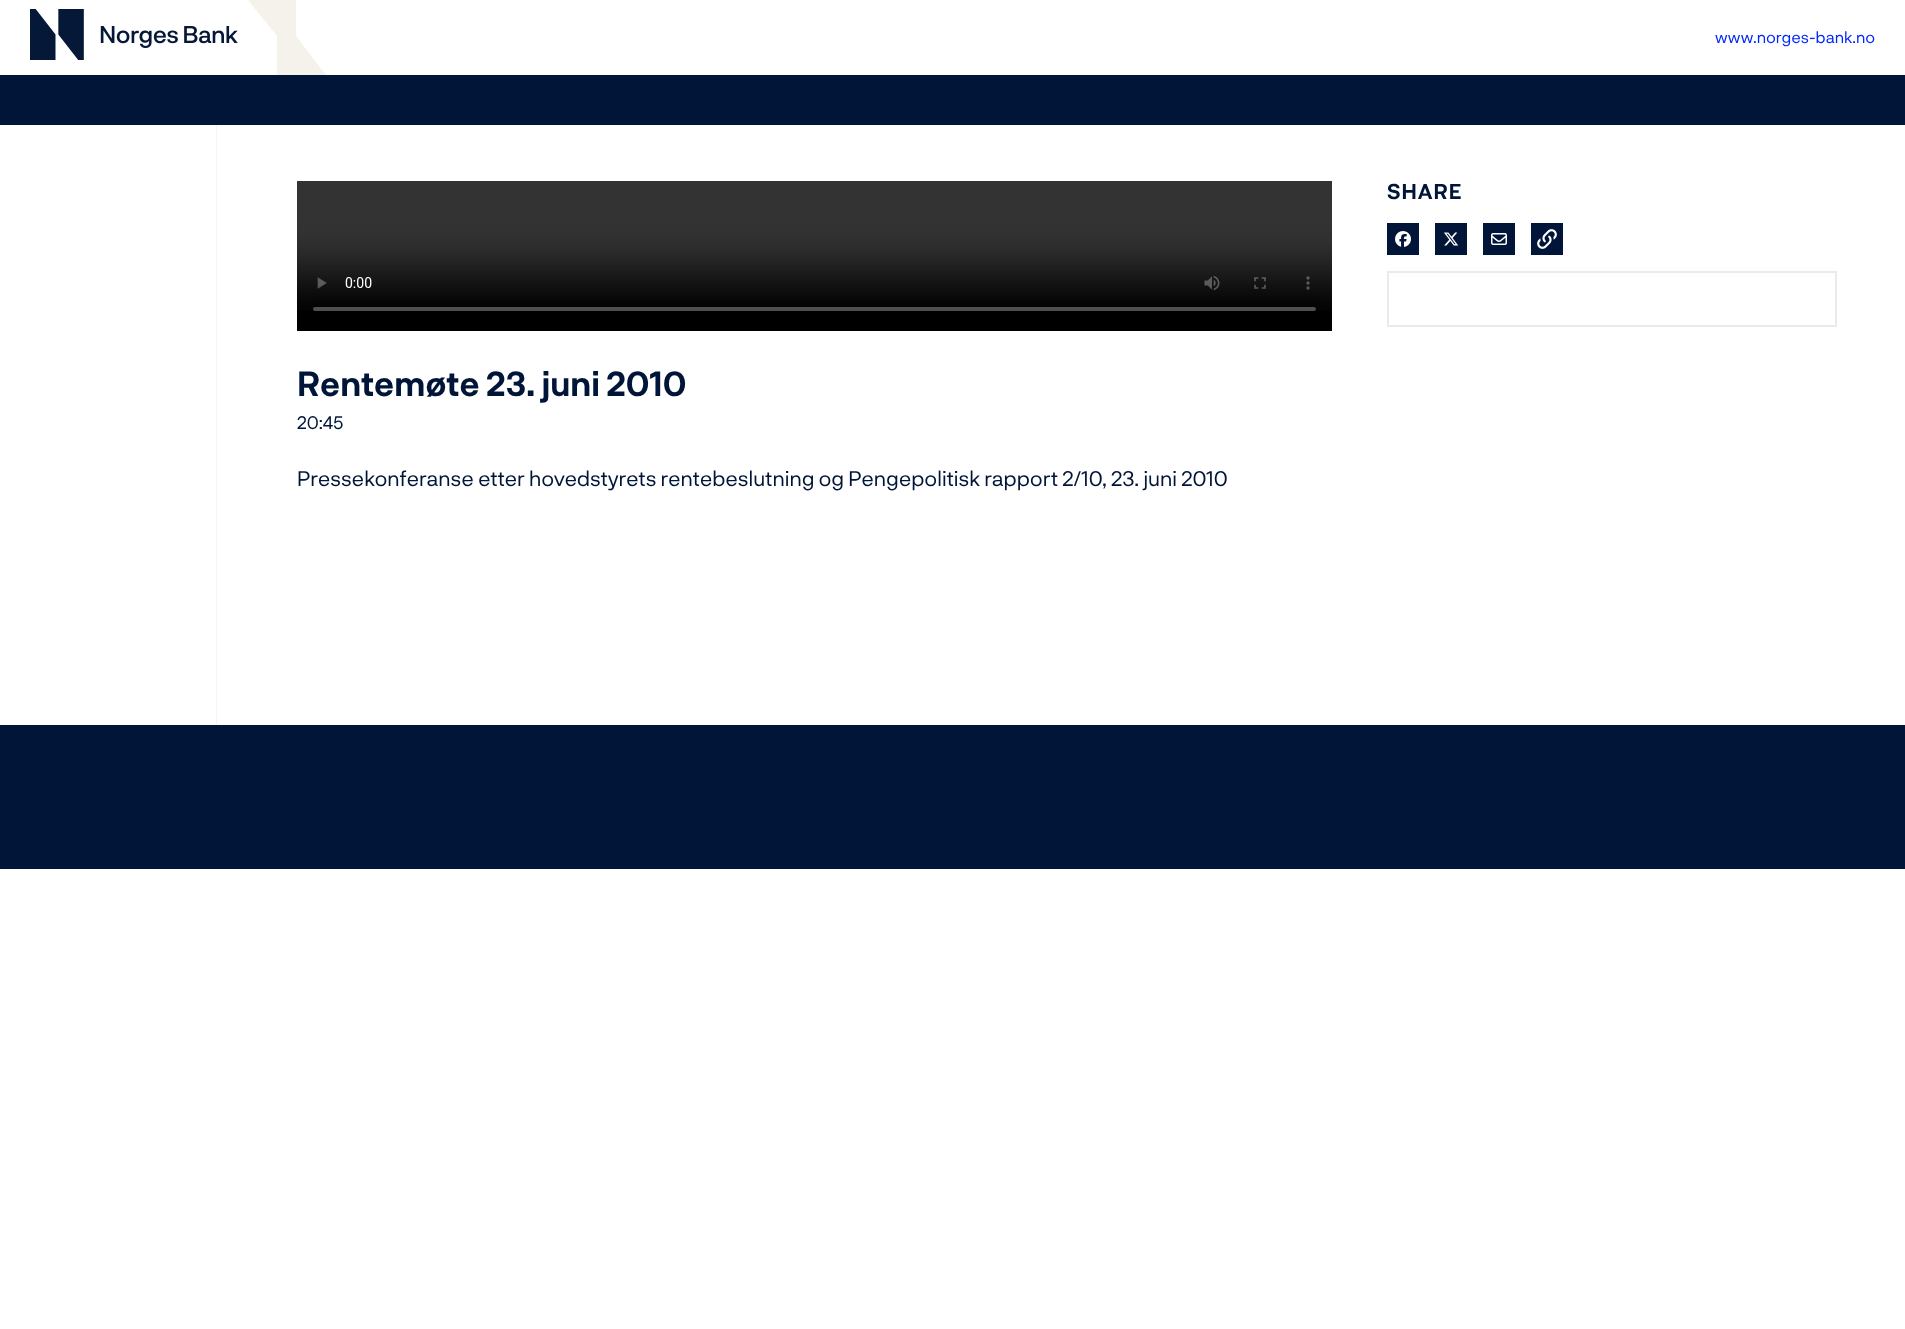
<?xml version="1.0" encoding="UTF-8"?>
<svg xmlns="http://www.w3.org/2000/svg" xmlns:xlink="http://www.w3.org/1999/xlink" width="1905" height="1329">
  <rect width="100%" height="100%" fill="#ffffff" />
  <rect y="75" width="1905" height="50" fill="#001538" />
  <image x="30" y="9" width="208" height="51" xlink:href="image1.png" />
  <path d="M 248 0 l 29 36 v 39 h 49 l -30 -39 v -36 z" fill="#f5f2eb" />
  <rect x="216" y="125" width="1" height="600" fill="#f5f5f5" />
  <rect x="297" y="311" width="1035" height="20" fill="#000000" />
  <image x="297" y="181" width="1035" height="130" xlink:href="image2.png" />
  <rect x="1387" y="223" width="32" height="32" fill="#001538" />
  <image x="1395" y="231" width="16" height="16" xlink:href="image3.png" />
  <rect x="1435" y="223" width="32" height="32" fill="#001538" />
  <image x="1444" y="232" width="15" height="14" xlink:href="image4.png" />
  <rect x="1483" y="223" width="32" height="32" fill="#001538" />
  <image x="1491" y="233" width="16" height="12" xlink:href="image5.png" />
  <rect x="1531" y="223" width="32" height="32" fill="#001538" />
  <image x="1537" y="229" width="20" height="20" xlink:href="image6.png" />
  <rect x="1388" y="272" width="448" height="54" fill="none" stroke="#ebebeb" stroke-width="2" />
  <rect y="726" width="1905" height="143" fill="#001538" />
  <rect y="725" width="1905" height="1" fill="#001436" />
  <text x="1715" y="43" style="font-family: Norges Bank; font-size: 16px; fill: #0026ff">www.norges-bank.no</text>
  <text x="1387" y="199" style="font-family: Norges Bank; font-size: 21px; font-weight: bold; letter-spacing: 1px; fill: #001538">SHARE</text>
  <text x="297" y="396" style="font-family: Norges Bank; font-size: 34px; font-weight: bold; fill: #001538">Rentemøte 23. juni 2010</text>
  <text x="297" y="429" style="font-family: Norges Bank; font-size: 18px; fill: #001538">20:45</text>
  <text x="297" y="486" style="font-family: Norges Bank; font-size: 21px; fill: #001538">Pressekonferanse etter hovedstyrets rentebeslutning og Pengepolitisk rapport 2/10, 23. juni 2010</text>
</svg>
